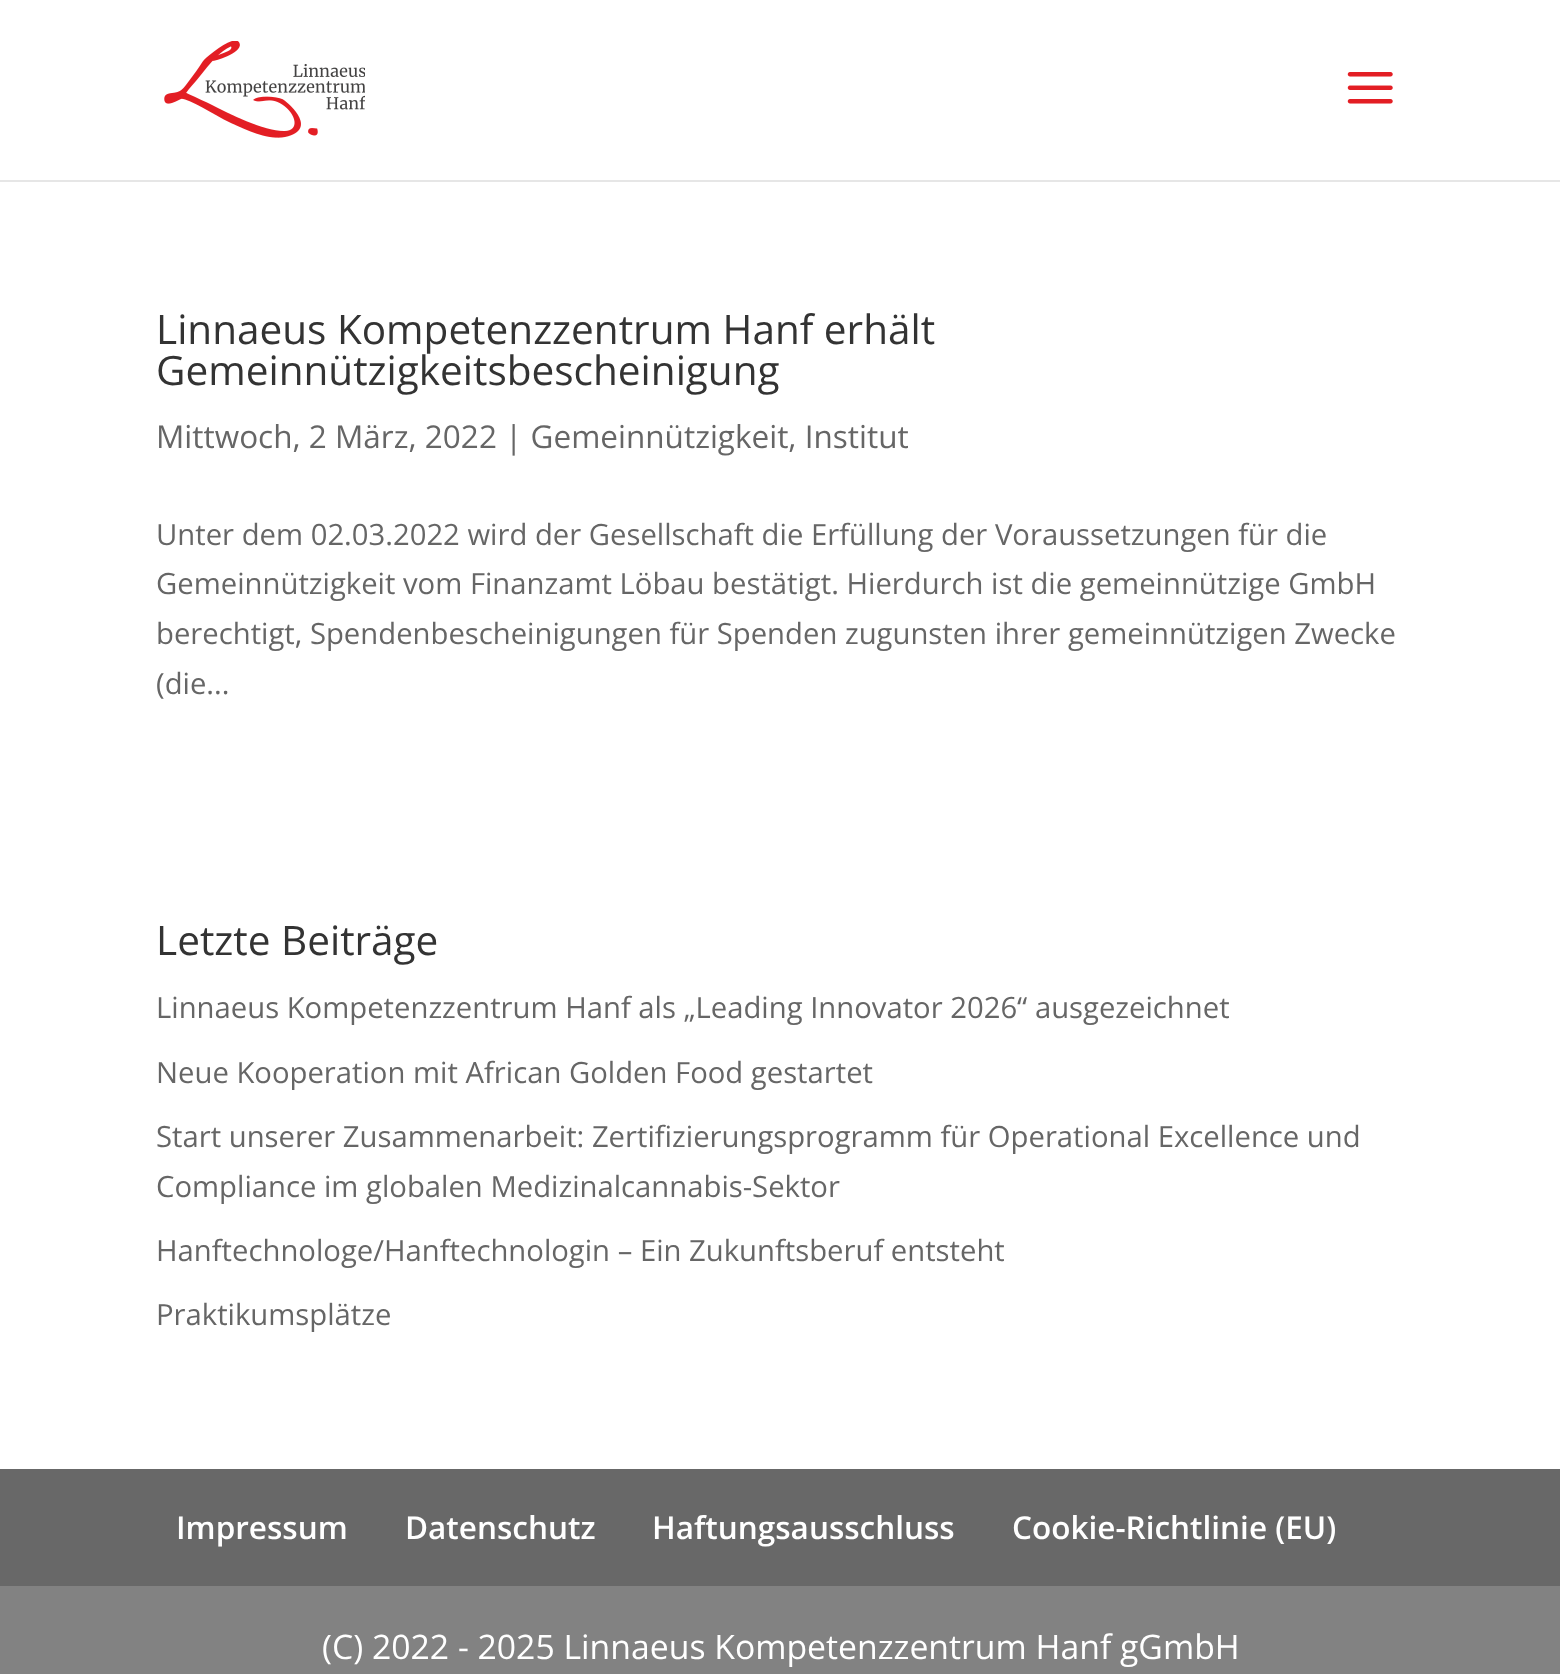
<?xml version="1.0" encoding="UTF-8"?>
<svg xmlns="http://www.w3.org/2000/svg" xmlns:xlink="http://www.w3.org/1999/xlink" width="1560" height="1674">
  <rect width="100%" height="100%" fill="#ffffff" />
  <path d="M 0 180 v 2 h 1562 v -180 v 178 z" fill="#e6e6e6" />
  <image x="164" y="41" width="201" height="97" xlink:href="image1.png" />
  <image x="1347" y="72" width="46" height="32" xlink:href="image2.png" />
  <rect y="1469" width="1560" height="117" fill="#686868" />
  <rect y="1586" width="1560" height="88" fill="#828282" />
  <text x="156" y="344" style="font-family: Open Sans; font-size: 40.5px; fill: #333333">Linnaeus Kompetenzzentrum Hanf erhält</text>
  <text x="156" y="385" style="font-family: Open Sans; font-size: 40.5px; fill: #333333">Gemeinnützigkeitsbescheinigung</text>
  <text x="156" y="448" style="font-family: Open Sans; font-size: 31.5px; fill: #666666">Mittwoch, 2 März, 2022 | Gemeinnützigkeit, Institut</text>
  <text x="156" y="545" style="font-family: Open Sans; font-size: 29.25px; fill: #666666">Unter dem 02.03.2022 wird der Gesellschaft die Erfüllung der Voraussetzungen für die</text>
  <text x="156" y="594" style="font-family: Open Sans; font-size: 29.25px; fill: #666666">Gemeinnützigkeit vom Finanzamt Löbau bestätigt. Hierdurch ist die gemeinnützige GmbH</text>
  <text x="156" y="644" style="font-family: Open Sans; font-size: 29.25px; fill: #666666">berechtigt, Spendenbescheinigungen für Spenden zugunsten ihrer gemeinnützigen Zwecke</text>
  <text x="156" y="694" style="font-family: Open Sans; font-size: 29.25px; fill: #666666">(die...</text>
  <text x="156" y="955" style="font-family: Open Sans; font-size: 40.5px; fill: #333333">Letzte Beiträge</text>
  <text x="156" y="1018" style="font-family: Open Sans; font-size: 29.25px; fill: #666666">Linnaeus Kompetenzzentrum Hanf als „Leading Innovator 2026“ ausgezeichnet</text>
  <text x="156" y="1083" style="font-family: Open Sans; font-size: 29.25px; fill: #666666">Neue Kooperation mit African Golden Food gestartet</text>
  <text x="156" y="1147" style="font-family: Open Sans; font-size: 29.25px; fill: #666666">Start unserer Zusammenarbeit: Zertifizierungsprogramm für Operational Excellence und</text>
  <text x="156" y="1197" style="font-family: Open Sans; font-size: 29.25px; fill: #666666">Compliance im globalen Medizinalcannabis-Sektor</text>
  <text x="156" y="1261" style="font-family: Open Sans; font-size: 29.25px; fill: #666666">Hanftechnologe/Hanftechnologin – Ein Zukunftsberuf entsteht</text>
  <text x="156" y="1325" style="font-family: Open Sans; font-size: 29.25px; fill: #666666">Praktikumsplätze</text>
  <text x="176" y="1539" style="font-family: Open Sans; font-size: 31.5px; font-weight: 600; fill: #ffffff">Impressum</text>
  <text x="405" y="1539" style="font-family: Open Sans; font-size: 31.5px; font-weight: 600; fill: #ffffff">Datenschutz</text>
  <text x="652" y="1539" style="font-family: Open Sans; font-size: 31.5px; font-weight: 600; fill: #ffffff">Haftungsausschluss</text>
  <text x="1012" y="1539" style="font-family: Open Sans; font-size: 31.5px; font-weight: 600; fill: #ffffff">Cookie-Richtlinie (EU)</text>
  <text x="322" y="1659" style="font-family: Open Sans; font-size: 33.75px; fill: #ffffff">(C) 2022 - 2025 Linnaeus Kompetenzzentrum Hanf gGmbH</text>
</svg>
